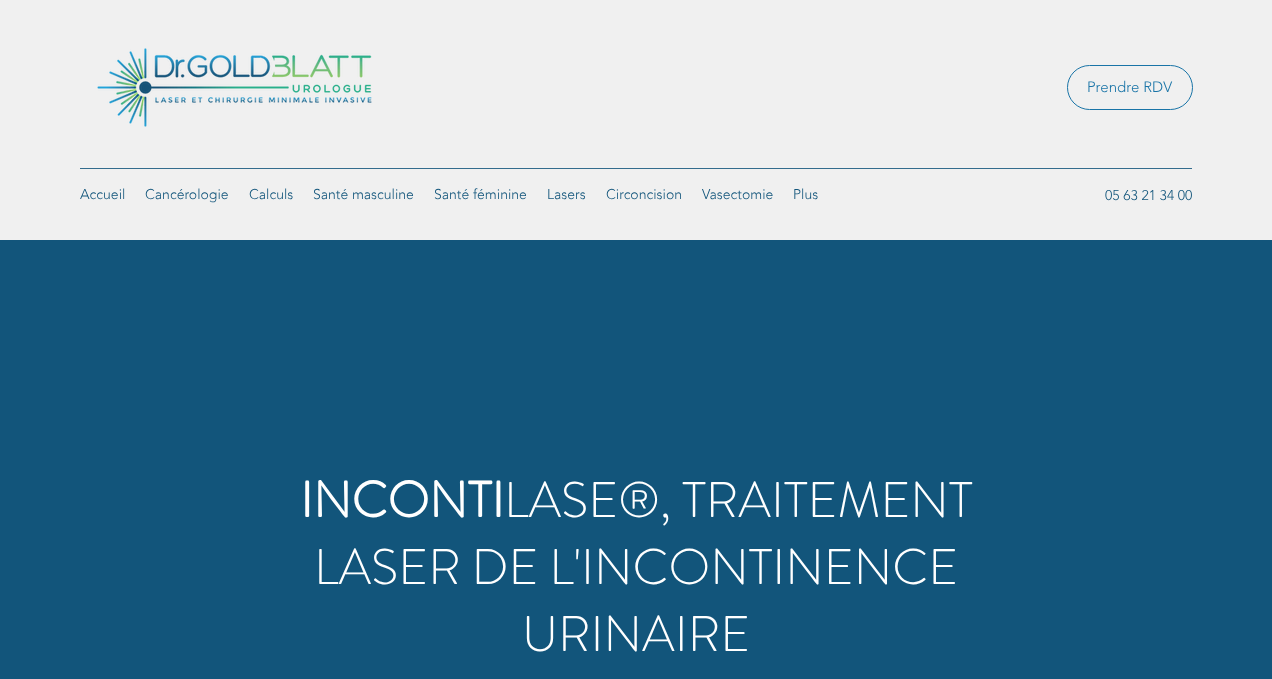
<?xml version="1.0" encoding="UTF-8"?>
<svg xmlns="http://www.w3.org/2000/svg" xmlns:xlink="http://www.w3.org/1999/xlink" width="1272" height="679">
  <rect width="100%" height="100%" fill="#12557b" />
  <rect width="1272" height="240" fill="#f0f0f0" />
  <image x="97" y="48" width="275" height="79" xlink:href="image1.png" />
  <rect x="1067.5" y="65.5" width="125" height="44" rx="22" fill="none" stroke="#1974a7" />
  <rect x="80" y="168" width="1112" height="1" fill="#336c8d" />
  <text x="1087" y="92" style="font-family: 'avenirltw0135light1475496'; font-size: 15px; font-weight: 300; fill: #1974a7">Prendre RDV</text>
  <text x="80" y="199" style="font-family: 'avenirltw0135light1475496'; font-size: 14px; font-weight: 300; fill: #12557b">Accueil</text>
  <text x="145" y="199" style="font-family: 'avenirltw0135light1475496'; font-size: 14px; font-weight: 300; fill: #12557b">Cancérologie</text>
  <text x="249" y="199" style="font-family: 'avenirltw0135light1475496'; font-size: 14px; font-weight: 300; fill: #12557b">Calculs</text>
  <text x="313" y="199" style="font-family: 'avenirltw0135light1475496'; font-size: 14px; font-weight: 300; fill: #12557b">Santé masculine</text>
  <text x="434" y="199" style="font-family: 'avenirltw0135light1475496'; font-size: 14px; font-weight: 300; fill: #12557b">Santé féminine</text>
  <text x="547" y="199" style="font-family: 'avenirltw0135light1475496'; font-size: 14px; font-weight: 300; fill: #12557b">Lasers</text>
  <text x="606" y="199" style="font-family: 'avenirltw0135light1475496'; font-size: 14px; font-weight: 300; fill: #12557b">Circoncision</text>
  <text x="702" y="199" style="font-family: 'avenirltw0135light1475496'; font-size: 14px; font-weight: 300; fill: #12557b">Vasectomie</text>
  <text x="793" y="199" style="font-family: 'avenirltw0135light1475496'; font-size: 14px; font-weight: 300; fill: #12557b">Plus</text>
  <text x="1105" y="200" style="font-family: 'avenirltw0135light1475496'; font-size: 14px; font-weight: 300; fill: #12557b">05 63 21 34 00</text>
  <text x="300" y="517" style="font-family: 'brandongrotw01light'; font-size: 50px; font-weight: bold; fill: #ffffff">INCONTI</text>
  <text x="504" y="517" style="font-family: 'brandongrotw01light'; font-size: 50px; font-weight: 300; fill: #ffffff">LASE®, TRAITEMENT</text>
  <text x="314" y="584" style="font-family: 'brandongrotw01light'; font-size: 50px; font-weight: 300; fill: #ffffff">LASER DE L'INCONTINENCE</text>
  <text x="522" y="651" style="font-family: 'brandongrotw01light'; font-size: 50px; font-weight: 300; fill: #ffffff">URINAIRE</text>
</svg>
